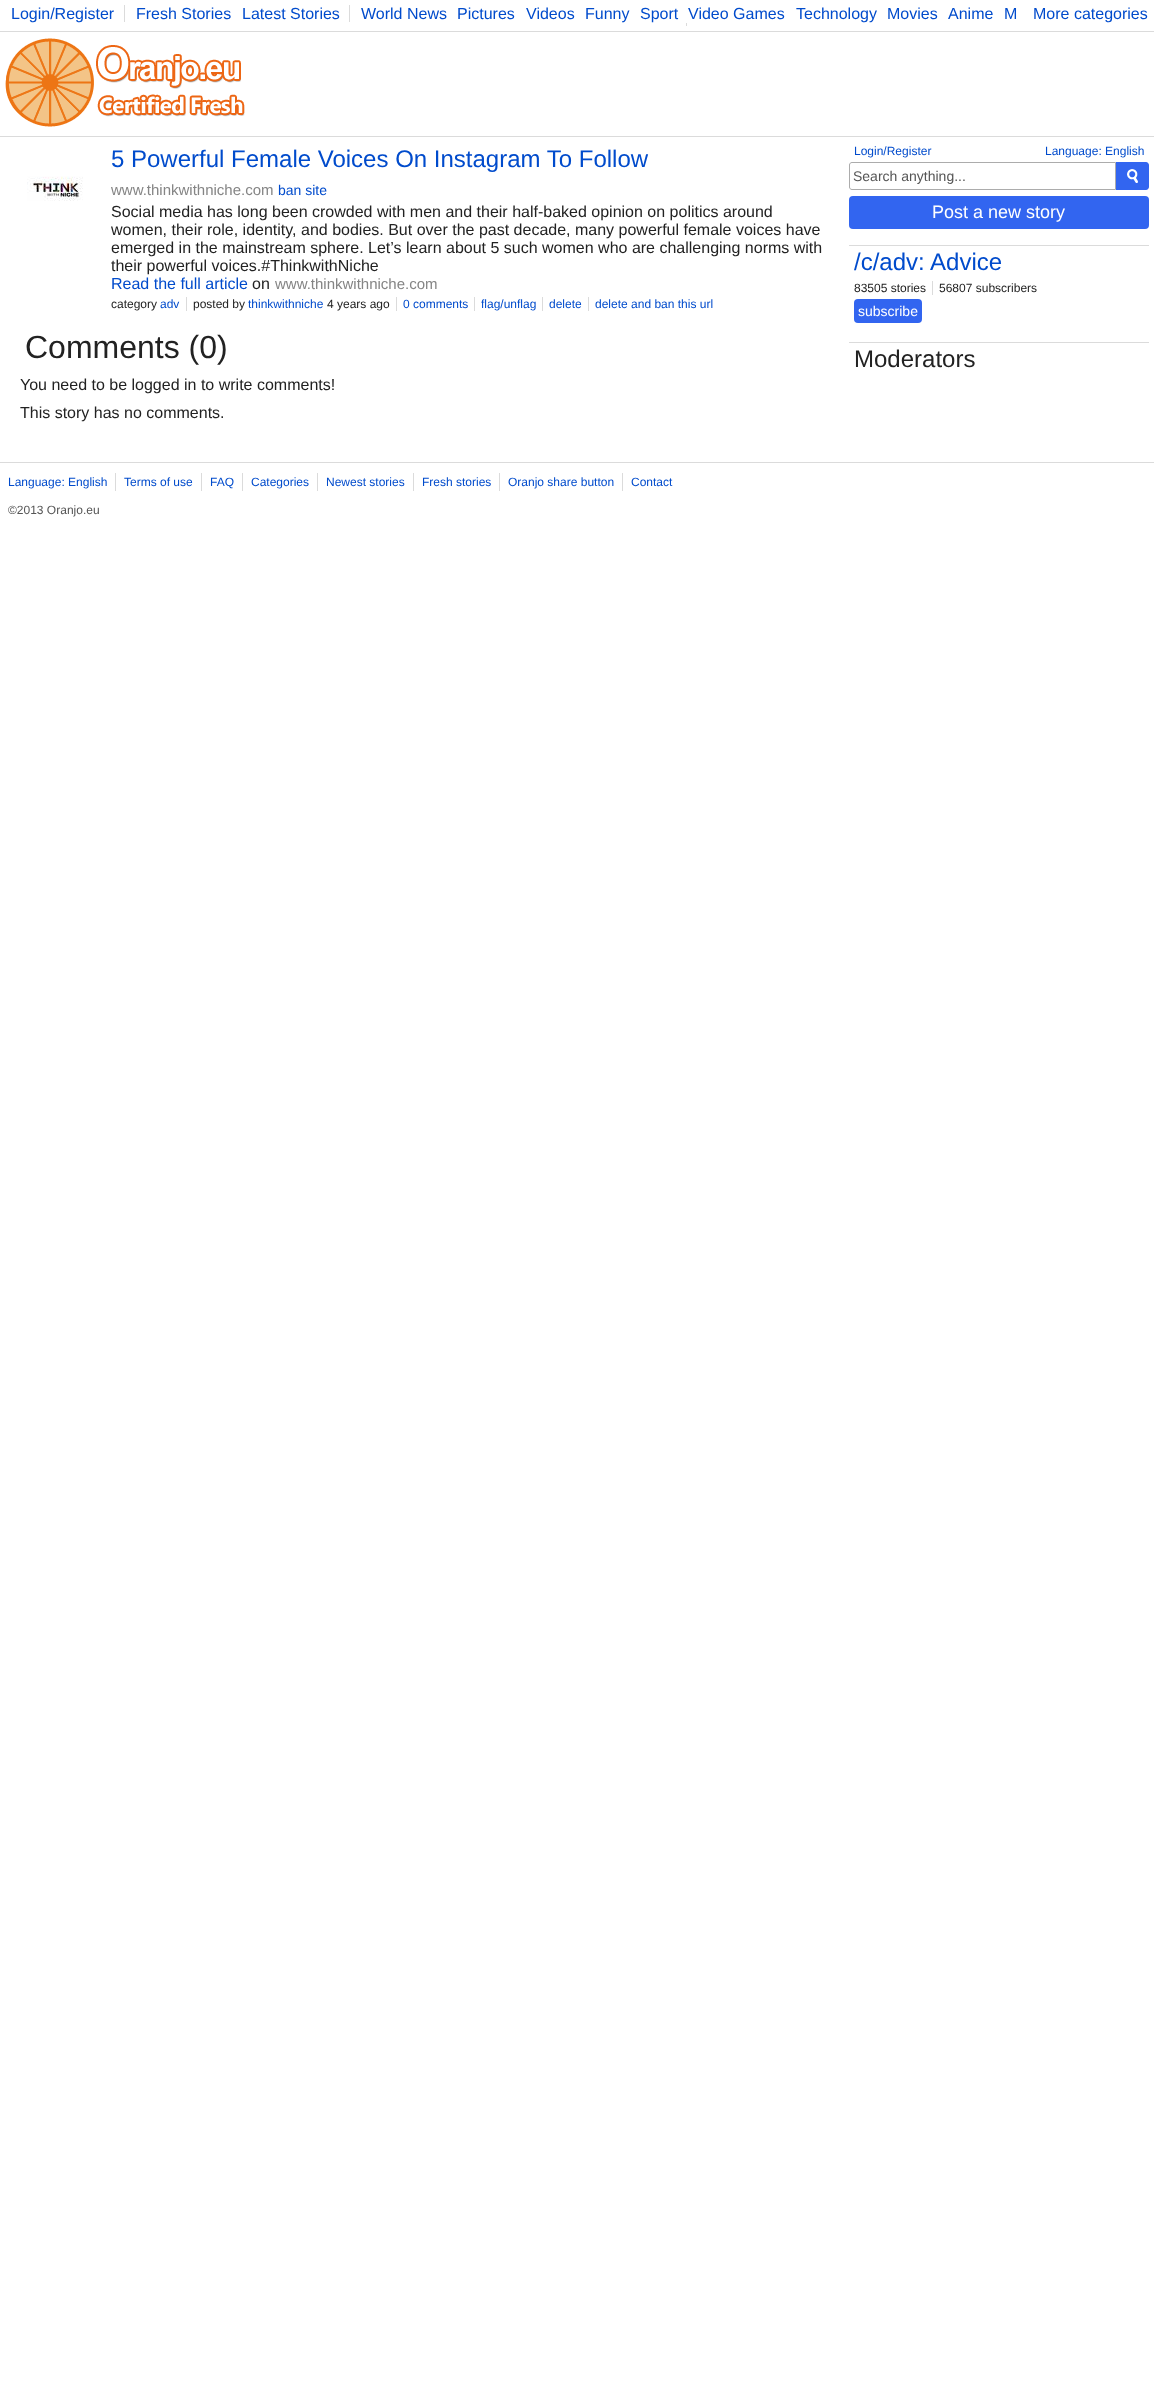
<?xml version="1.0" encoding="UTF-8"?>
<svg xmlns="http://www.w3.org/2000/svg" xmlns:xlink="http://www.w3.org/1999/xlink" width="1154" height="2400">
  <rect width="100%" height="100%" fill="#ffffff" />
  <rect y="31" width="1154" height="1" fill="#dbdbdb" />
  <rect x="124" y="5" width="1" height="17" fill="#dbdbdb" />
  <rect x="349" y="5" width="1" height="17" fill="#dbdbdb" />
  <rect x="686" y="23" width="1" height="3" fill="#dbdbdb" />
  <rect y="136" width="1154" height="1" fill="#dbdbdb" />
  <image x="5" y="38" width="240" height="89" xlink:href="image1.png" />
  <image x="27" y="176" width="56" height="25" xlink:href="image2.png" />
  <rect x="186" y="297" width="1" height="14" fill="#dbdbdb" />
  <rect x="396" y="297" width="1" height="14" fill="#dbdbdb" />
  <rect x="474" y="297" width="1" height="14" fill="#dbdbdb" />
  <rect x="542" y="297" width="1" height="14" fill="#dbdbdb" />
  <rect x="588" y="297" width="1" height="14" fill="#dbdbdb" />
  <path d="M 852 162.5 h 263.5 v 27 h -263.5 c -1.5 0 -2.5 -1 -2.5 -2.5 v -22 c 0 -1.5 1 -2.5 2.5 -2.5 z" fill="none" stroke="#acacac" />
  <path d="M 1116 162 h 30 c 1.5 0 3 1.5 3 3 v 22 c 0 1.5 -1.5 3 -3 3 h -30 z" fill="#3265f0" />
  <image x="1127" y="169" width="11" height="14" xlink:href="image3.png" />
  <rect x="849" y="196" width="300" height="33" rx="4" fill="#3265f0" />
  <rect x="849" y="245" width="300" height="1" fill="#dbdbdb" />
  <rect x="932" y="281" width="1" height="14" fill="#dbdbdb" />
  <rect x="854" y="299" width="68" height="24" rx="4" fill="#3265f0" />
  <rect x="849" y="342" width="300" height="1" fill="#dbdbdb" />
  <rect y="462" width="1154" height="1" fill="#dbdbdb" />
  <rect x="115" y="473" width="1" height="18" fill="#dbdbdb" />
  <rect x="201" y="473" width="1" height="18" fill="#dbdbdb" />
  <rect x="242" y="473" width="1" height="18" fill="#dbdbdb" />
  <rect x="317" y="473" width="1" height="18" fill="#dbdbdb" />
  <rect x="413" y="473" width="1" height="18" fill="#dbdbdb" />
  <rect x="499" y="473" width="1" height="18" fill="#dbdbdb" />
  <rect x="622" y="473" width="1" height="18" fill="#dbdbdb" />
  <text x="11" y="19" style="font-family: Liberation Sans; font-size: 16px; fill: #004bcc">Login/Register</text>
  <text x="136" y="19" style="font-family: Liberation Sans; font-size: 16px; fill: #004bcc">Fresh Stories</text>
  <text x="242" y="19" style="font-family: Liberation Sans; font-size: 16px; fill: #004bcc">Latest Stories</text>
  <text x="361" y="19" style="font-family: Liberation Sans; font-size: 16px; fill: #004bcc">World News</text>
  <text x="457" y="19" style="font-family: Liberation Sans; font-size: 16px; fill: #004bcc">Pictures</text>
  <text x="526" y="19" style="font-family: Liberation Sans; font-size: 16px; fill: #004bcc">Videos</text>
  <text x="585" y="19" style="font-family: Liberation Sans; font-size: 16px; fill: #004bcc">Funny</text>
  <text x="640" y="19" style="font-family: Liberation Sans; font-size: 16px; fill: #004bcc">Sport</text>
  <text x="688" y="19" style="font-family: Liberation Sans; font-size: 16px; fill: #004bcc">Video Games</text>
  <text x="796" y="19" style="font-family: Liberation Sans; font-size: 16px; fill: #004bcc">Technology</text>
  <text x="887" y="19" style="font-family: Liberation Sans; font-size: 16px; fill: #004bcc">Movies</text>
  <text x="948" y="19" style="font-family: Liberation Sans; font-size: 16px; fill: #004bcc">Anime</text>
  <text x="1004" y="19" style="font-family: Liberation Sans; font-size: 16px; fill: #004bcc">M</text>
  <text x="1033" y="19" style="font-family: Liberation Sans; font-size: 16px; fill: #004bcc">More categories</text>
  <text x="111" y="167" style="font-family: Liberation Sans; font-size: 24px; fill: #004bcc">5 Powerful Female Voices On Instagram To Follow</text>
  <text x="111" y="195" style="font-family: Liberation Sans; font-size: 15px; fill: #858585">www.thinkwithniche.com</text>
  <text x="278" y="195" style="font-family: Liberation Sans; font-size: 14px; fill: #004bcc">ban site</text>
  <text x="111" y="217" style="font-family: Liberation Sans; font-size: 16px; fill: #222222">Social media has long been crowded with men and their half-baked opinion on politics around</text>
  <text x="111" y="235" style="font-family: Liberation Sans; font-size: 16px; fill: #222222">women, their role, identity, and bodies. But over the past decade, many powerful female voices have</text>
  <text x="111" y="253" style="font-family: Liberation Sans; font-size: 16px; fill: #222222">emerged in the mainstream sphere. Let’s learn about 5 such women who are challenging norms with</text>
  <text x="111" y="271" style="font-family: Liberation Sans; font-size: 16px; fill: #222222">their powerful voices.#ThinkwithNiche</text>
  <text x="111" y="289" style="font-family: Liberation Sans; font-size: 16px; fill: #004bcc">Read the full article</text>
  <text x="252" y="289" style="font-family: Liberation Sans; font-size: 16px; fill: #222222">on</text>
  <text x="275" y="289" style="font-family: Liberation Sans; font-size: 15px; fill: #858585">www.thinkwithniche.com</text>
  <text x="111" y="308" style="font-family: Liberation Sans; font-size: 12px; fill: #222222">category</text>
  <text x="160" y="308" style="font-family: Liberation Sans; font-size: 12px; fill: #004bcc">adv</text>
  <text x="193" y="308" style="font-family: Liberation Sans; font-size: 12px; fill: #222222">posted by</text>
  <text x="248" y="308" style="font-family: Liberation Sans; font-size: 12px; fill: #004bcc">thinkwithniche</text>
  <text x="327" y="308" style="font-family: Liberation Sans; font-size: 12px; fill: #222222">4 years ago</text>
  <text x="403" y="308" style="font-family: Liberation Sans; font-size: 12px; fill: #004bcc">0 comments</text>
  <text x="481" y="308" style="font-family: Liberation Sans; font-size: 12px; fill: #004bcc">flag/unflag</text>
  <text x="549" y="308" style="font-family: Liberation Sans; font-size: 12px; fill: #004bcc">delete</text>
  <text x="595" y="308" style="font-family: Liberation Sans; font-size: 12px; fill: #004bcc">delete and ban this url</text>
  <text x="25" y="358" style="font-family: Liberation Sans; font-size: 32px; fill: #222222">Comments (0)</text>
  <text x="20" y="390" style="font-family: Liberation Sans; font-size: 16px; fill: #222222">You need to be logged in to write comments!</text>
  <text x="20" y="418" style="font-family: Liberation Sans; font-size: 16px; fill: #222222">This story has no comments.</text>
  <text x="854" y="155" style="font-family: Liberation Sans; font-size: 12px; fill: #004bcc">Login/Register</text>
  <text x="1045" y="155" style="font-family: Liberation Sans; font-size: 12px; fill: #004bcc">Language: English</text>
  <text x="853" y="181" style="font-family: Liberation Sans; font-size: 14px; fill: #555555">Search anything...</text>
  <text x="932" y="218" style="font-family: Liberation Sans; font-size: 18px; fill: #ffffff">Post a new story</text>
  <text x="854" y="270" style="font-family: Liberation Sans; font-size: 24px; fill: #004bcc">/c/adv: Advice</text>
  <text x="854" y="292" style="font-family: Liberation Sans; font-size: 12px; fill: #222222">83505 stories</text>
  <text x="939" y="292" style="font-family: Liberation Sans; font-size: 12px; fill: #222222">56807 subscribers</text>
  <text x="858" y="316" style="font-family: Liberation Sans; font-size: 14px; fill: #ffffff">subscribe</text>
  <text x="854" y="367" style="font-family: Liberation Sans; font-size: 24px; fill: #222222">Moderators</text>
  <text x="8" y="486" style="font-family: Liberation Sans; font-size: 12px; fill: #004bcc">Language: English</text>
  <text x="124" y="486" style="font-family: Liberation Sans; font-size: 12px; fill: #004bcc">Terms of use</text>
  <text x="210" y="486" style="font-family: Liberation Sans; font-size: 12px; fill: #004bcc">FAQ</text>
  <text x="251" y="486" style="font-family: Liberation Sans; font-size: 12px; fill: #004bcc">Categories</text>
  <text x="326" y="486" style="font-family: Liberation Sans; font-size: 12px; fill: #004bcc">Newest stories</text>
  <text x="422" y="486" style="font-family: Liberation Sans; font-size: 12px; fill: #004bcc">Fresh stories</text>
  <text x="508" y="486" style="font-family: Liberation Sans; font-size: 12px; fill: #004bcc">Oranjo share button</text>
  <text x="631" y="486" style="font-family: Liberation Sans; font-size: 12px; fill: #004bcc">Contact</text>
  <text x="8" y="514" style="font-family: Liberation Sans; font-size: 12px; fill: #555555">©2013 Oranjo.eu</text>
</svg>
